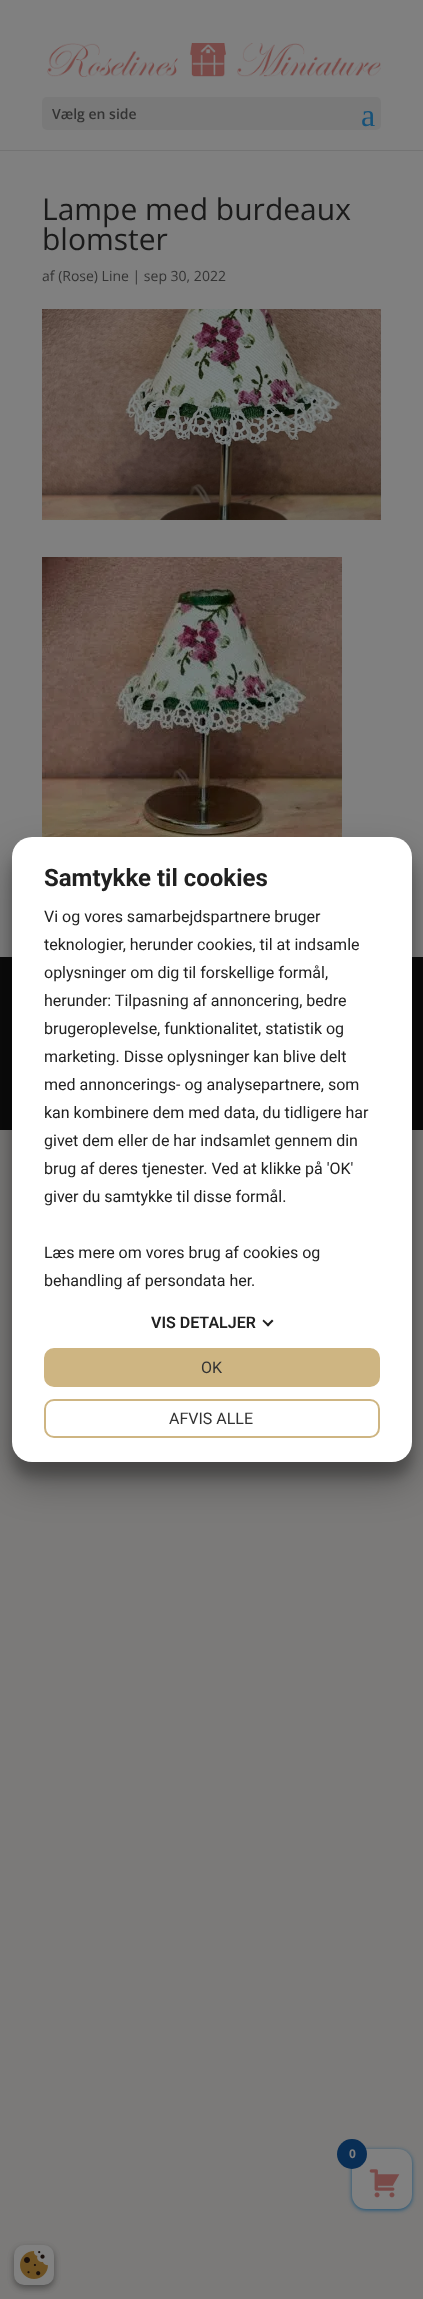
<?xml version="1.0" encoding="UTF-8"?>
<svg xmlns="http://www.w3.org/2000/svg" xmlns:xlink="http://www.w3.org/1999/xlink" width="423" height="2299">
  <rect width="100%" height="100%" fill="#7b7a79" />
  <rect y="150" width="423" height="1" fill="#737373" />
  <rect width="423" height="150" fill="#808080" />
  <image x="47" y="43" width="334" height="34" xlink:href="image1.png" />
  <rect x="42" y="97" width="339" height="33" rx="5" fill="#797979" />
  <rect y="151" width="423" height="806" fill="#808080" />
  <image x="42" y="309" width="339" height="211" xlink:href="image2.png" />
  <image x="42" y="557" width="300" height="280" xlink:href="image3.png" />
  <rect y="957" width="423" height="173" fill="#0c0c0c" />
  <rect x="12" y="852" width="400" height="625" rx="20" fill="#000000" fill-opacity="0.22" filter="blur(6px)" />
  <rect x="12" y="856" width="400" height="625" rx="20" fill="#000000" fill-opacity="0.3" filter="blur(19px)" />
  <rect x="12" y="837" width="400" height="625" rx="20" fill="#ffffff" />
  <path d="M 272 1319.5 l 1.5 1.5 l -5.5 5.5 l -1.5 -1.5 z" fill="#212121" />
  <path d="M 263.5 1319.5 l 6 5.5 l -1.5 1.5 l -5.5 -5.5 z" fill="#212121" />
  <rect x="45" y="1349" width="334" height="37" rx="9" fill="#ceb582" stroke="#ceb582" stroke-width="2" />
  <rect x="45" y="1400" width="334" height="37" rx="9" fill="none" stroke="#ceb582" stroke-width="2" />
  <rect x="352" y="2150" width="60" height="60" rx="14" fill="#175279" filter="blur(2px)" />
  <rect x="352" y="2149" width="60" height="60" rx="14" fill="#808080" />
  <circle cx="352" cy="2154" r="15" fill="#092e55" />
  <image x="369" y="2169" width="31" height="29" xlink:href="image4.png" />
  <rect x="14" y="2248" width="40" height="40" rx="10" fill="#000000" fill-opacity="0.23" filter="blur(3px)" />
  <rect x="14" y="2248" width="40" height="40" rx="10" fill="#000000" fill-opacity="0.16" filter="blur(3px)" />
  <rect x="14" y="2245" width="40" height="40" rx="10" fill="#808080" />
  <image x="20" y="2251" width="28" height="28" xlink:href="image5.png" />
  <text x="52" y="119" style="font-family: Open Sans; font-size: 14px; font-weight: 600; fill: #333333">Vælg en side</text>
  <text x="361" y="126" style="font-family: Liberation Serif; font-size: 32px; fill: #175279">a</text>
  <text x="42" y="220" style="font-family: Open Sans; font-size: 30px; fill: #1a1a1a">Lampe med burdeaux</text>
  <text x="42" y="250" style="font-family: Open Sans; font-size: 30px; fill: #1a1a1a">blomster</text>
  <text x="42" y="281" style="font-family: Open Sans; font-size: 14px; fill: #333333">af (Rose) Line | sep 30, 2022</text>
  <text x="44" y="886" style="font-family: Roboto; font-size: 24px; font-weight: bold; fill: #212121">Samtykke til cookies</text>
  <text x="44" y="922" style="font-family: Roboto; font-size: 16px; fill: #212121">Vi og vores samarbejdspartnere bruger</text>
  <text x="44" y="950" style="font-family: Roboto; font-size: 16px; fill: #212121">teknologier, herunder cookies, til at indsamle</text>
  <text x="44" y="978" style="font-family: Roboto; font-size: 16px; fill: #212121">oplysninger om dig til forskellige formål,</text>
  <text x="44" y="1006" style="font-family: Roboto; font-size: 16px; fill: #212121">herunder: Tilpasning af annoncering, bedre</text>
  <text x="44" y="1034" style="font-family: Roboto; font-size: 16px; fill: #212121">brugeroplevelse, funktionalitet, statistik og</text>
  <text x="44" y="1062" style="font-family: Roboto; font-size: 16px; fill: #212121">marketing. Disse oplysninger kan blive delt</text>
  <text x="44" y="1090" style="font-family: Roboto; font-size: 16px; fill: #212121">med annoncerings- og analysepartnere, som</text>
  <text x="44" y="1118" style="font-family: Roboto; font-size: 16px; fill: #212121">kan kombinere dem med data, du tidligere har</text>
  <text x="44" y="1146" style="font-family: Roboto; font-size: 16px; fill: #212121">givet dem eller de har indsamlet gennem din</text>
  <text x="44" y="1174" style="font-family: Roboto; font-size: 16px; fill: #212121">brug af deres tjenester. Ved at klikke på 'OK'</text>
  <text x="44" y="1202" style="font-family: Roboto; font-size: 16px; fill: #212121">giver du samtykke til disse formål.</text>
  <text x="44" y="1258" style="font-family: Roboto; font-size: 16px; fill: #212121">Læs mere om vores brug af cookies og</text>
  <text x="44" y="1286" style="font-family: Roboto; font-size: 16px; fill: #212121">behandling af persondata her</text>
  <text x="251" y="1286" style="font-family: Roboto; font-size: 16px; fill: #212121">.</text>
  <text x="151" y="1328" style="font-family: Roboto; font-size: 16px; font-weight: 600; fill: #212121">VIS DETALJER</text>
  <text x="201" y="1373" style="font-family: Roboto; font-size: 16px; fill: #333333">OK</text>
  <text x="169" y="1424" style="font-family: Roboto; font-size: 16px; fill: #333333">AFVIS ALLE</text>
  <text x="349" y="2158" style="font-family: Open Sans; font-size: 12px; font-weight: bold; fill: #808080">0</text>
</svg>
